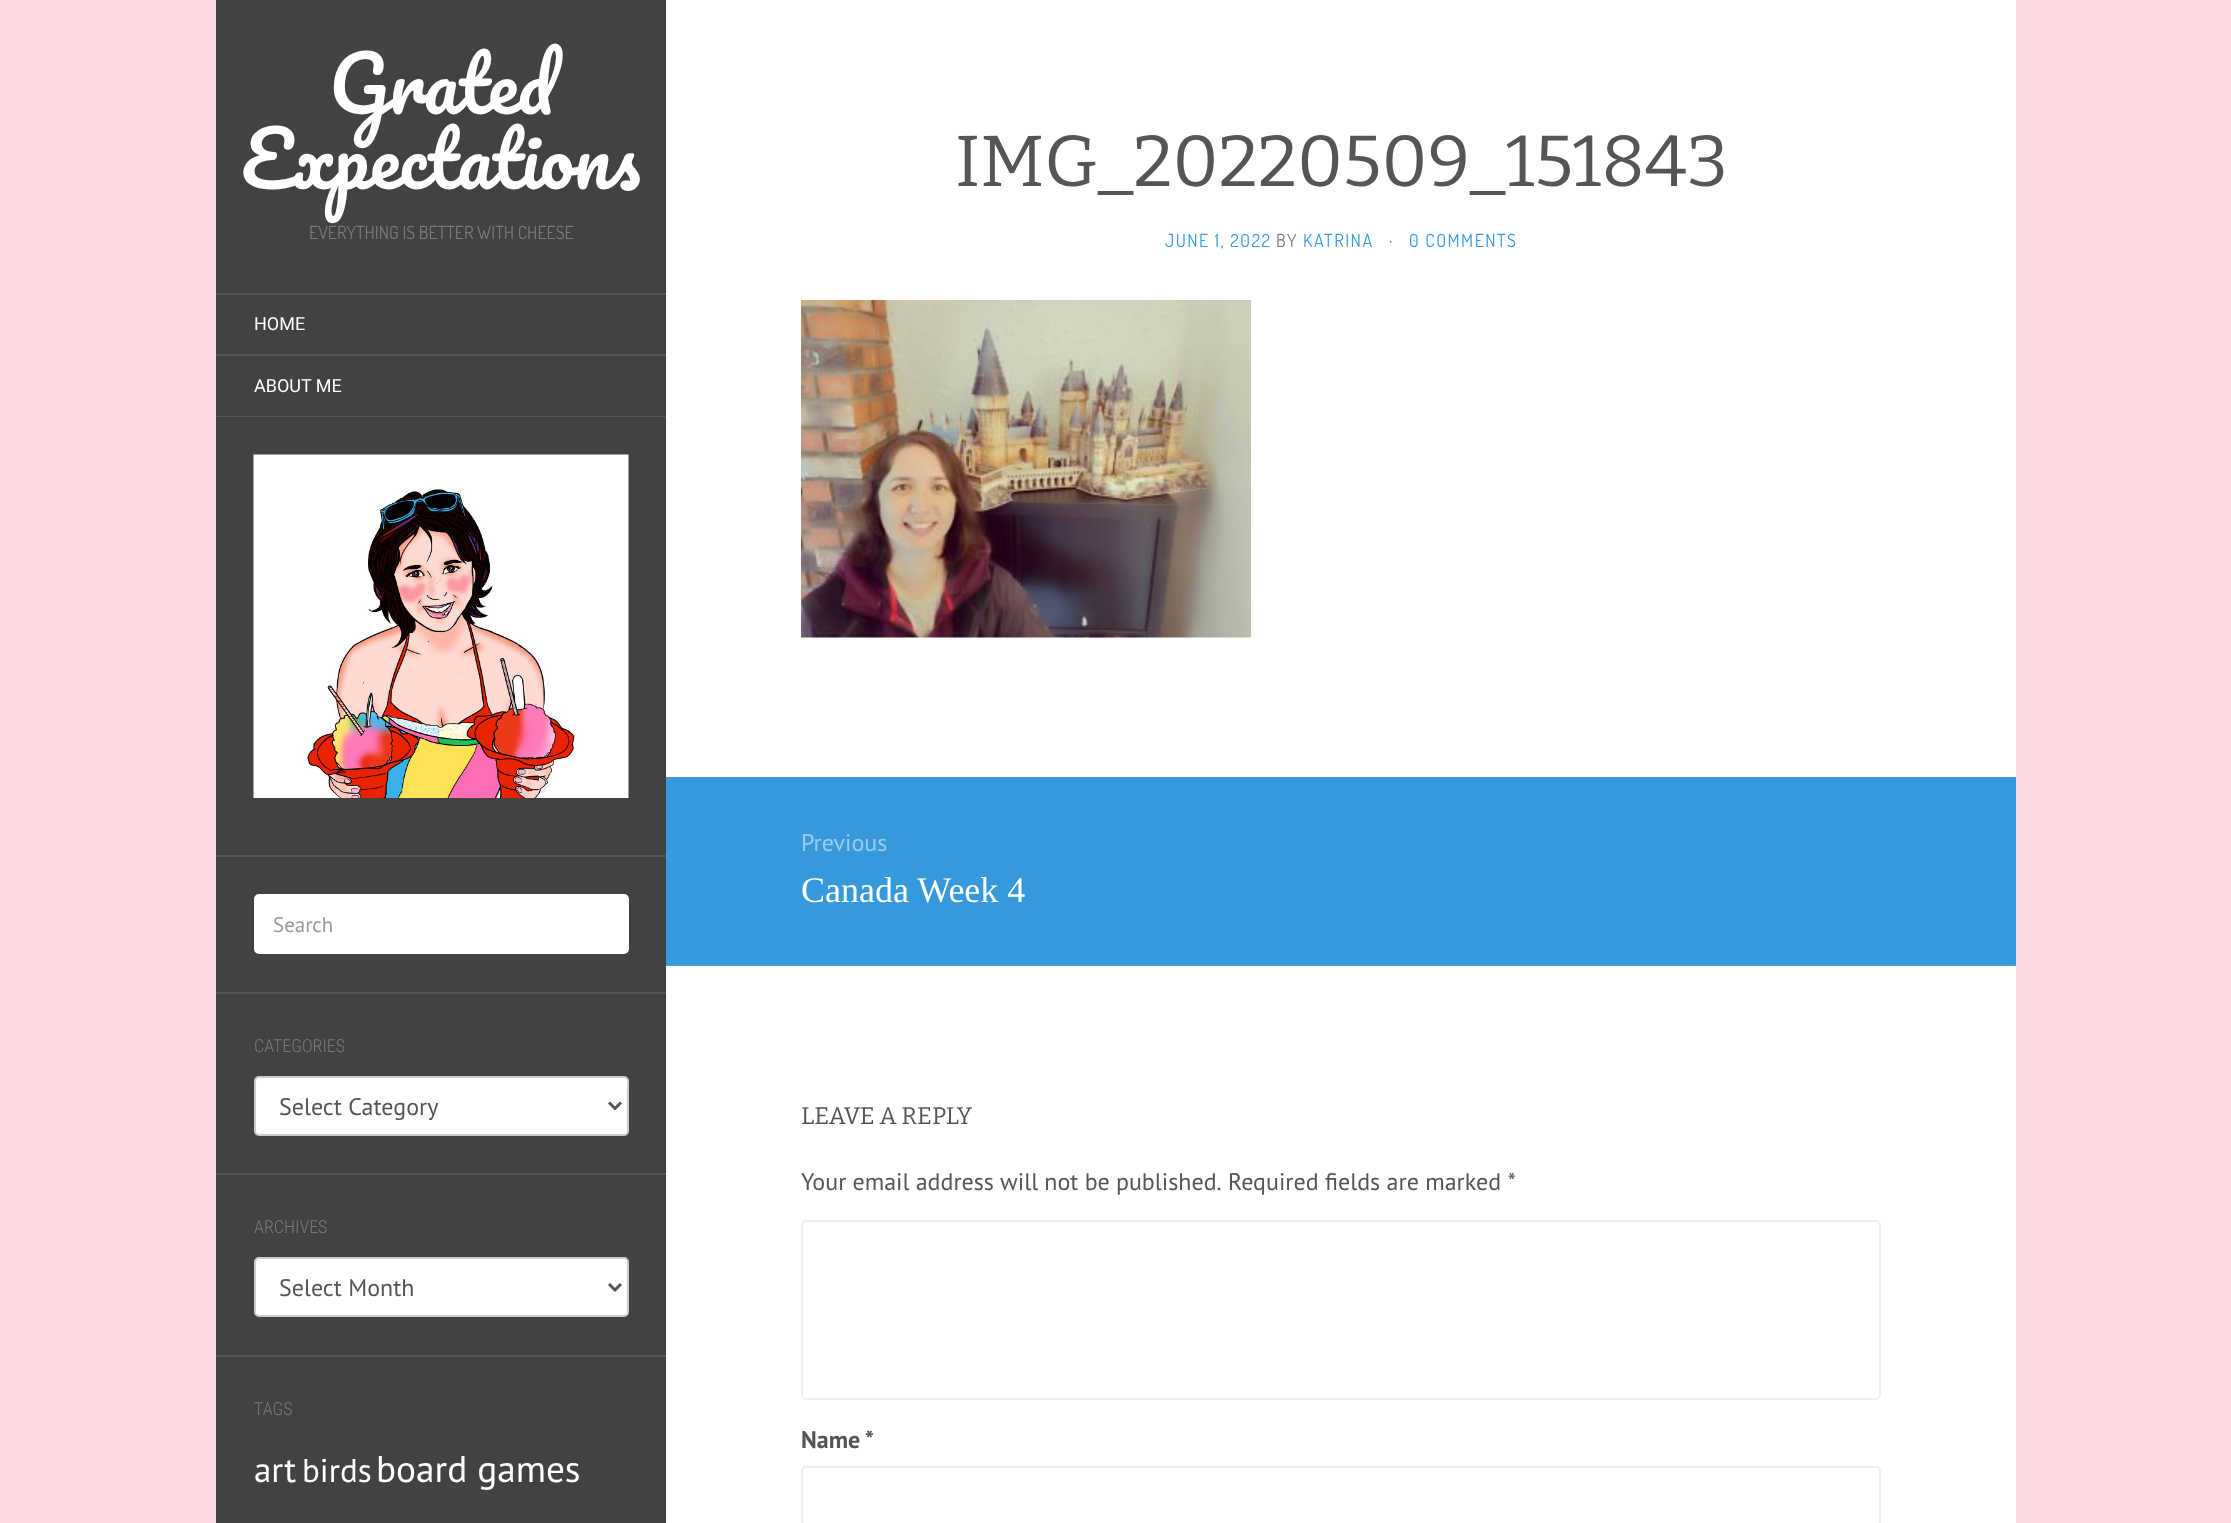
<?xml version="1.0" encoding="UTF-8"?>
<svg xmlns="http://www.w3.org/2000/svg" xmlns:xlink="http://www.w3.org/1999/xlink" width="2231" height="1523">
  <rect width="100%" height="100%" fill="#ffd9df" />
  <rect x="666" width="1350" height="1523" fill="#ffffff" />
  <rect x="216" width="450" height="416" fill="#424242" />
  <rect x="216" y="293" width="450" height="2" fill="#555555" />
  <rect x="216" y="354" width="450" height="2" fill="#555555" />
  <rect x="216" y="416" width="450" height="1" fill="#555555" />
  <rect x="216" y="417" width="450" height="1106" fill="#424242" />
  <rect x="216" y="855" width="450" height="2" fill="#555555" />
  <image x="253" y="454" width="376" height="344" xlink:href="image1.png" />
  <rect x="216" y="992" width="450" height="2" fill="#555555" />
  <rect x="255" y="895" width="373" height="58" rx="4" fill="#ffffff" stroke="#ffffff" stroke-width="2" />
  <rect x="216" y="1173" width="450" height="2" fill="#555555" />
  <rect x="255" y="1077" width="373" height="58" rx="4" fill="#ffffff" stroke="#cccccc" stroke-width="2" />
  <path d="M 609 1102.5 l 6 6 l 6 -6" fill="none" stroke="#555555" stroke-width="3" />
  <rect x="216" y="1355" width="450" height="2" fill="#555555" />
  <rect x="255" y="1258" width="373" height="58" rx="4" fill="#ffffff" stroke="#cccccc" stroke-width="2" />
  <path d="M 609 1284 l 6 6 l 6 -6" fill="none" stroke="#555555" stroke-width="3" />
  <image x="801" y="300" width="450" height="338" xlink:href="image2.png" />
  <rect x="666" y="777" width="1350" height="188" fill="#3699dc" />
  <rect x="666" y="965" width="1350" height="1" fill="#4aa3e0" />
  <rect x="802" y="1221" width="1078" height="178" rx="4" fill="none" stroke="#eeeeee" stroke-width="2" />
  <rect x="802" y="1467" width="1078" height="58" rx="4" fill="none" stroke="#eeeeee" stroke-width="2" />
  <text x="329" y="114" style="font-family: Pacifico; font-size: 75px; fill: #ffffff">Grated</text>
  <text x="241" y="189" style="font-family: Pacifico; font-size: 75px; fill: #ffffff">Expectations</text>
  <text x="309" y="239" style="font-family: Dosis; font-size: 18px; fill: #7b7b7b">EVERYTHING IS BETTER WITH CHEESE</text>
  <text x="254" y="330" style="font-family: Roboto; font-size: 18px; fill: #ffffff">HOME</text>
  <text x="254" y="392" style="font-family: Roboto; font-size: 18px; fill: #ffffff">ABOUT ME</text>
  <text x="273" y="932" style="font-family: PT Sans; font-size: 21px; fill: #999999">Search</text>
  <text x="254" y="1052" style="font-family: Roboto Condensed; font-size: 18px; font-weight: 300; fill: #7b7b7b">CATEGORIES</text>
  <text x="279" y="1115" style="font-family: PT Sans; font-size: 24px; fill: #555555">Select Category</text>
  <text x="254" y="1233" style="font-family: Roboto Condensed; font-size: 18px; font-weight: 300; fill: #7b7b7b">ARCHIVES</text>
  <text x="279" y="1296" style="font-family: PT Sans; font-size: 24px; fill: #555555">Select Month</text>
  <text x="254" y="1415" style="font-family: Roboto Condensed; font-size: 18px; font-weight: 300; fill: #7b7b7b">TAGS</text>
  <text x="254" y="1482" style="font-family: PT Sans; font-size: 35px; fill: #ffffff">art</text>
  <text x="302" y="1482" style="font-family: PT Sans; font-size: 33px; fill: #ffffff">birds</text>
  <text x="376" y="1482" style="font-family: PT Sans; font-size: 37.25px; fill: #ffffff">board games</text>
  <text x="955" y="186" style="font-family: Bitter; font-size: 72px; font-weight: 100; fill: #555555">IMG_20220509_151843</text>
  <text x="1165" y="247" style="font-family: Dosis; font-size: 18px; letter-spacing: 1.5px; fill: #3699dc">JUNE 1, 2022</text>
  <text x="1276" y="247" style="font-family: Dosis; font-size: 18px; letter-spacing: 1.5px; fill: #7b7b7b">BY</text>
  <text x="1303" y="247" style="font-family: Dosis; font-size: 18px; letter-spacing: 1.5px; fill: #3699dc">KATRINA</text>
  <text x="1389" y="247" style="font-family: Dosis; font-size: 18px; letter-spacing: 1.5px; fill: #7b7b7b">·</text>
  <text x="1409" y="247" style="font-family: Dosis; font-size: 18px; letter-spacing: 1.5px; fill: #3699dc">0 COMMENTS</text>
  <text x="801" y="851" style="font-family: PT Sans; font-size: 24px; fill: #9bccee">Previous</text>
  <text x="801" y="902" style="font-family: Liberation Serif; font-size: 36px; fill: #ffffff">Canada Week 4</text>
  <text x="801" y="1124" style="font-family: Bitter; font-size: 24px; font-weight: 100; fill: #555555">LEAVE A REPLY</text>
  <text x="801" y="1190" word-spacing="-0.25" style="font-family: PT Sans; font-size: 24px; fill: #555555">Your email address will not be published.</text>
  <text x="1228" y="1190" style="font-family: PT Sans; font-size: 24px; fill: #555555">Required fields are marked *</text>
  <text x="801" y="1448" style="font-family: PT Sans; font-size: 24px; font-weight: bold; fill: #555555">Name</text>
  <text x="865" y="1448" style="font-family: PT Sans; font-size: 24px; font-weight: bold; fill: #555555">*</text>
</svg>
